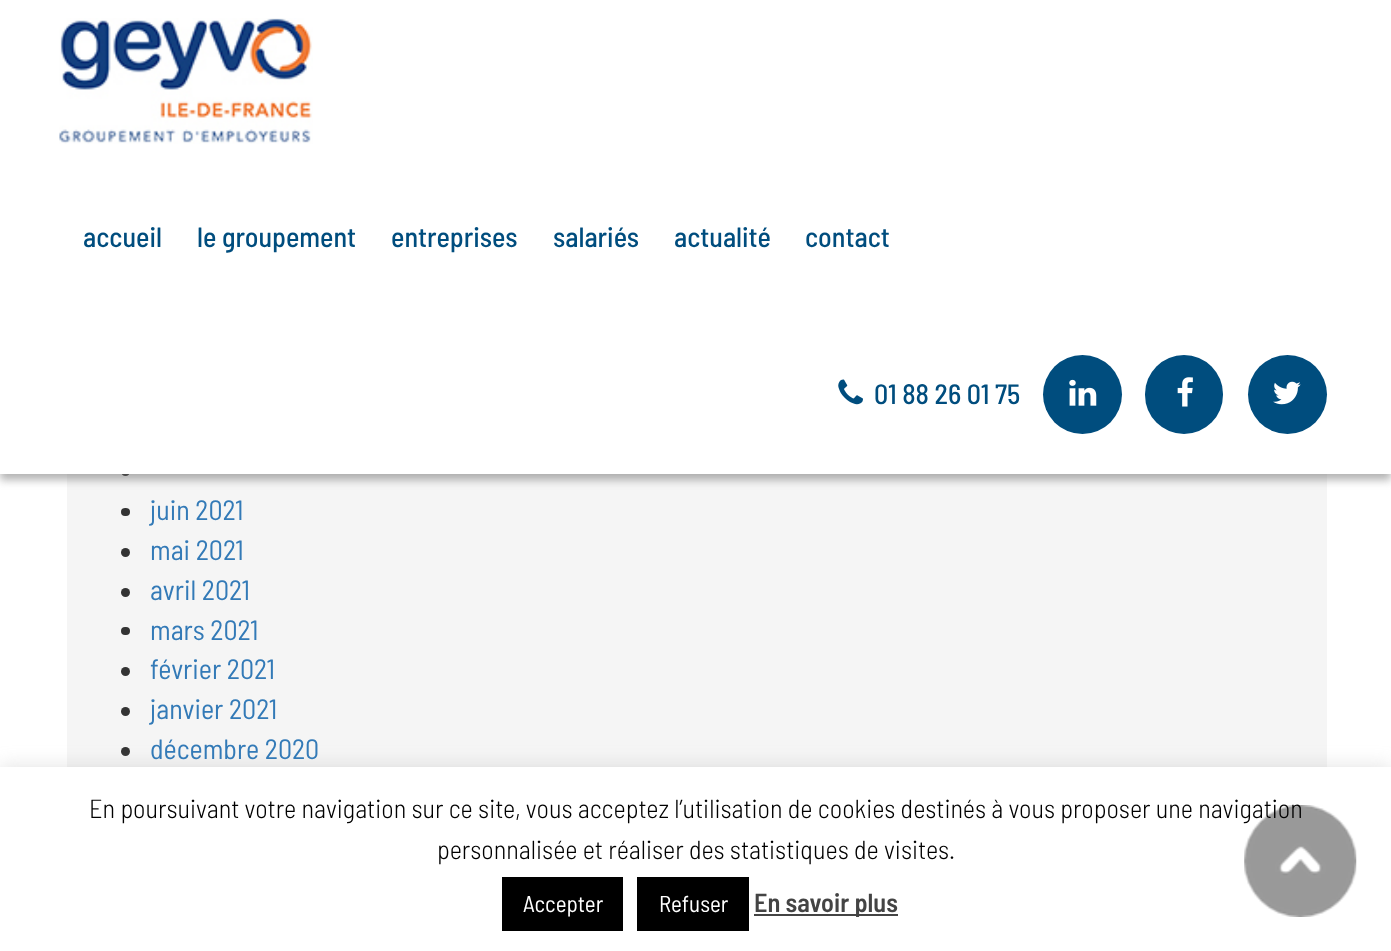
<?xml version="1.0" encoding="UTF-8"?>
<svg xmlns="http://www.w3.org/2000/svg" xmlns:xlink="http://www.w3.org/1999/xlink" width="1391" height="951">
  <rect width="100%" height="100%" fill="#ffffff" />
  <rect x="67" y="474" width="1260" height="293" fill="#f5f5f5" />
  <circle cx="125.5" cy="471.5" r="4.5" fill="#333333" />
  <rect y="5" width="1391" height="475" fill="#646464" fill-opacity="0.49" filter="blur(4.5px)" />
  <rect width="1391" height="474" fill="#ffffff" />
  <image x="59" y="18" width="254" height="126" xlink:href="image1.png" />
  <image x="838" y="379" width="25" height="26" xlink:href="image2.png" />
  <circle cx="1082.5" cy="394.5" r="39.5" fill="#004d7e" />
  <image x="1069" y="379" width="28" height="27" xlink:href="image3.png" />
  <rect x="1145" y="355" width="78" height="79" rx="39" fill="#004d7e" />
  <image x="1177" y="377" width="16" height="30" xlink:href="image4.png" />
  <circle cx="1287.5" cy="394.5" r="39.5" fill="#004d7e" />
  <image x="1273" y="381" width="28" height="24" xlink:href="image5.png" />
  <rect x="121" y="508" width="9" height="8" rx="4" fill="#333333" />
  <circle cx="125.5" cy="552.5" r="4.5" fill="#333333" />
  <circle cx="125.5" cy="592.5" r="4.5" fill="#333333" />
  <rect x="121" y="627" width="9" height="8" rx="4" fill="#333333" />
  <circle cx="125.5" cy="671.5" r="4.5" fill="#333333" />
  <circle cx="125.5" cy="711.5" r="4.5" fill="#333333" />
  <circle cx="125.5" cy="751.5" r="4.5" fill="#333333" />
  <rect y="765" width="1391" height="185" fill="#acabab" fill-opacity="0.3" filter="blur(9px)" />
  <rect y="767" width="1391" height="184" fill="#ffffff" />
  <rect x="502" y="877" width="121" height="54" fill="#000000" />
  <rect x="637" y="877" width="112" height="54" fill="#000000" />
  <rect x="754" y="914" width="144" height="2" fill="#444444" />
  <text x="83" y="247" style="font-family: Barlow Semi Condensed; font-size: 28px; font-weight: 500; fill: #004d7e">accueil</text>
  <text x="197" y="247" style="font-family: Barlow Semi Condensed; font-size: 28px; font-weight: 500; fill: #004d7e">le groupement</text>
  <text x="391" y="247" style="font-family: Barlow Semi Condensed; font-size: 28px; font-weight: 500; fill: #004d7e">entreprises</text>
  <text x="553" y="247" style="font-family: Barlow Semi Condensed; font-size: 28px; font-weight: 500; fill: #004d7e">salariés</text>
  <text x="674" y="247" style="font-family: Barlow Semi Condensed; font-size: 28px; font-weight: 500; fill: #004d7e">actualité</text>
  <text x="805" y="247" style="font-family: Barlow Semi Condensed; font-size: 28px; font-weight: 500; fill: #004d7e">contact</text>
  <text x="874" y="404" style="font-family: Barlow Semi Condensed; font-size: 28px; font-weight: 500; fill: #004d7e">01 88 26 01 75</text>
  <text x="150" y="520" style="font-family: Barlow Semi Condensed; font-size: 28px; fill: #337ab7">juin 2021</text>
  <text x="150" y="560" style="font-family: Barlow Semi Condensed; font-size: 28px; fill: #337ab7">mai 2021</text>
  <text x="150" y="600" style="font-family: Barlow Semi Condensed; font-size: 28px; fill: #337ab7">avril 2021</text>
  <text x="150" y="640" style="font-family: Barlow Semi Condensed; font-size: 28px; fill: #337ab7">mars 2021</text>
  <text x="150" y="679" style="font-family: Barlow Semi Condensed; font-size: 28px; fill: #337ab7">février 2021</text>
  <text x="150" y="719" style="font-family: Barlow Semi Condensed; font-size: 28px; fill: #337ab7">janvier 2021</text>
  <text x="150" y="759" style="font-family: Barlow Semi Condensed; font-size: 28px; fill: #337ab7">décembre 2020</text>
  <text x="89" y="818" style="font-family: Barlow Semi Condensed; font-size: 26.25px; font-weight: 300; fill: #000000">En poursuivant votre navigation sur ce site, vous acceptez l’utilisation de cookies destinés à vous proposer une navigation</text>
  <text x="437" y="859" style="font-family: Barlow Semi Condensed; font-size: 26.25px; font-weight: 300; fill: #000000">personnalisée et réaliser des statistiques de visites.</text>
  <text x="523" y="912" style="font-family: Barlow Semi Condensed; font-size: 23px; fill: #ffffff">Accepter</text>
  <text x="659" y="912" style="font-family: Barlow Semi Condensed; font-size: 23px; fill: #ffffff">Refuser</text>
  <text x="754" y="912" style="font-family: Barlow Semi Condensed; font-size: 26.25px; font-weight: 600; fill: #444444">En savoir plus</text>
  <image x="1244" y="805" width="113" height="112" xlink:href="image6.png" />
</svg>
